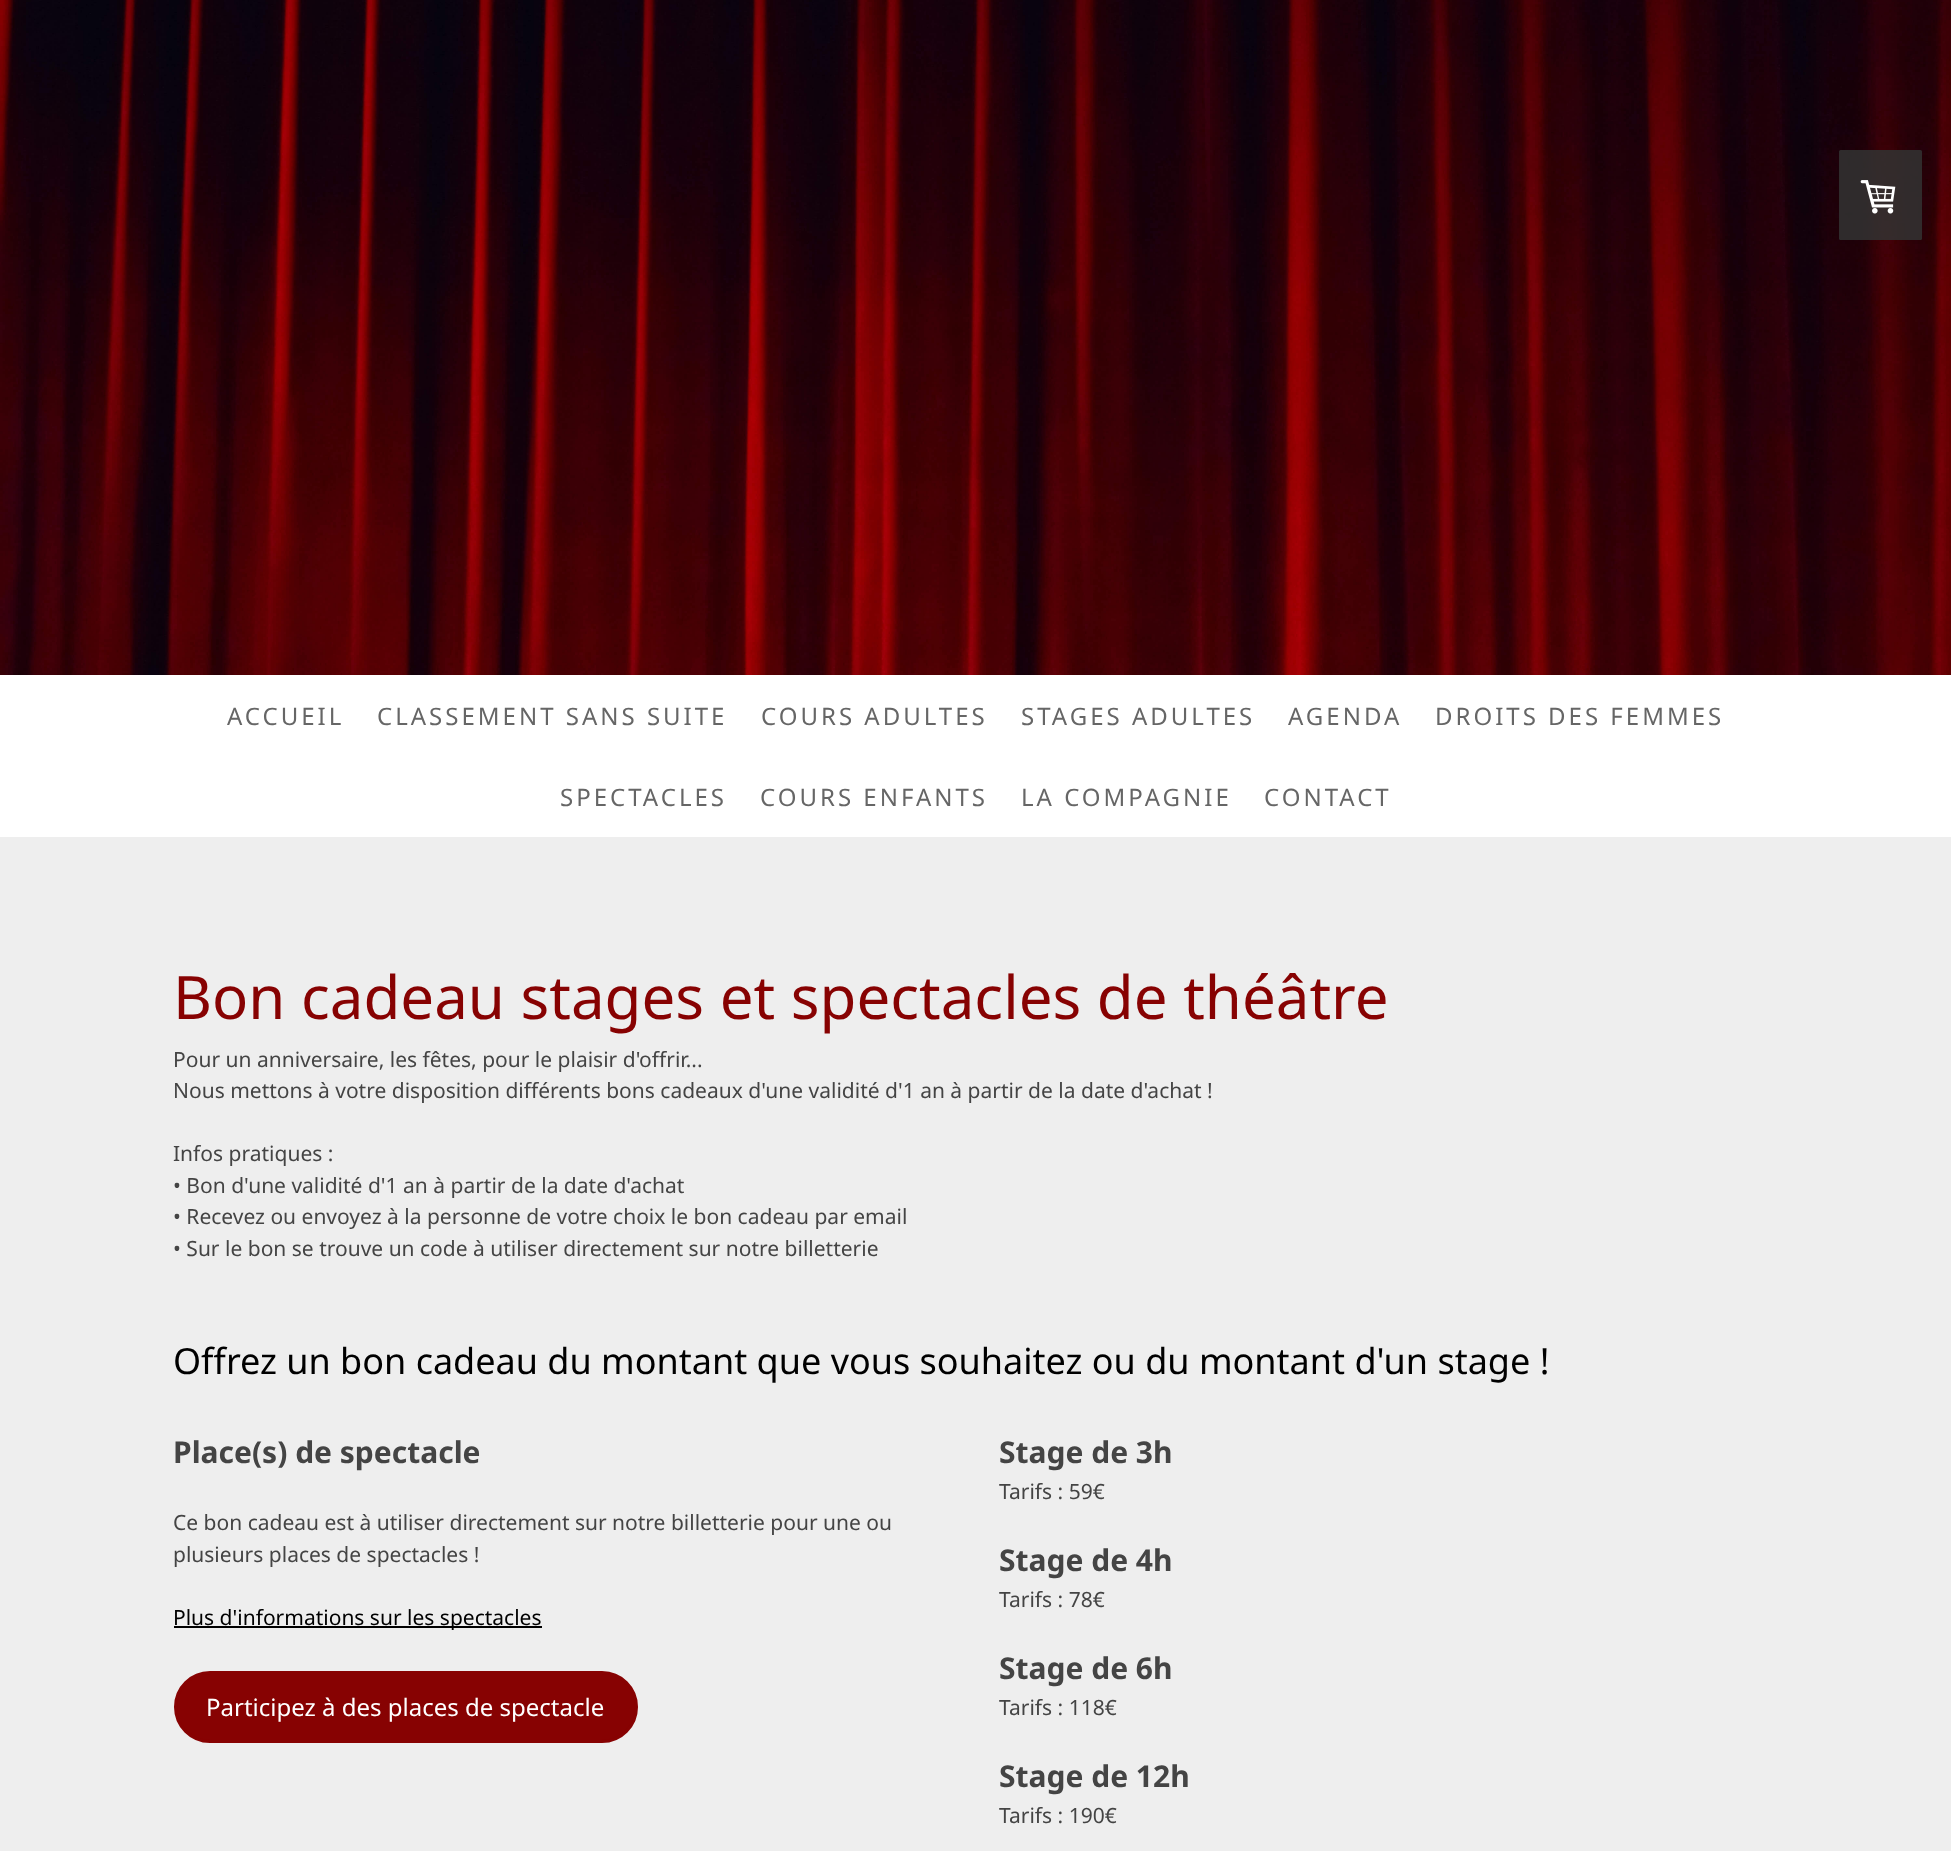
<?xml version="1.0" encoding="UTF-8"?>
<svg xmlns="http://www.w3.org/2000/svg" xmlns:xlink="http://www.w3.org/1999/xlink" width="1951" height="1851">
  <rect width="100%" height="100%" fill="#ffffff" />
  <image x="0" y="0" width="1951" height="675" xlink:href="image1.png" />
  <rect x="1839" y="150" width="83" height="90" rx="1.5" fill="#333333" fill-opacity="0.85" />
  <image x="1860" y="180" width="36" height="34" xlink:href="image2.png" />
  <rect y="837" width="1951" height="1014" fill="#eeeeee" />
  <rect x="174" y="1626" width="368" height="2" fill="#000000" />
  <rect x="175.5" y="1672.5" width="461" height="69" rx="34.5" fill="#870202" stroke="#870202" stroke-width="3" />
  <text x="227" y="725" style="font-family: Noto Sans; font-size: 24px; letter-spacing: 3px; fill: #666666">ACCUEIL</text>
  <text x="377" y="725" style="font-family: Noto Sans; font-size: 24px; letter-spacing: 3px; fill: #666666">CLASSEMENT SANS SUITE</text>
  <text x="761" y="725" style="font-family: Noto Sans; font-size: 24px; letter-spacing: 3px; fill: #666666">COURS ADULTES</text>
  <text x="1021" y="725" style="font-family: Noto Sans; font-size: 24px; letter-spacing: 3px; fill: #666666">STAGES ADULTES</text>
  <text x="1288" y="725" style="font-family: Noto Sans; font-size: 24px; letter-spacing: 3px; fill: #666666">AGENDA</text>
  <text x="1435" y="725" style="font-family: Noto Sans; font-size: 24px; letter-spacing: 3px; fill: #666666">DROITS DES FEMMES</text>
  <text x="560" y="806" style="font-family: Noto Sans; font-size: 24px; letter-spacing: 3px; fill: #666666">SPECTACLES</text>
  <text x="760" y="806" style="font-family: Noto Sans; font-size: 24px; letter-spacing: 3px; fill: #666666">COURS ENFANTS</text>
  <text x="1021" y="806" style="font-family: Noto Sans; font-size: 24px; letter-spacing: 3px; fill: #666666">LA COMPAGNIE</text>
  <text x="1264" y="806" style="font-family: Noto Sans; font-size: 24px; letter-spacing: 3px; fill: #666666">CONTACT</text>
  <text x="173" y="1019" style="font-family: Noto Sans; font-size: 60px; fill: #870202">Bon cadeau stages et spectacles de théâtre</text>
  <text x="173" y="1067" style="font-family: Noto Sans; font-size: 21px; fill: #444444">Pour un anniversaire, les fêtes, pour le plaisir d'offrir...</text>
  <text x="173" y="1098" style="font-family: Noto Sans; font-size: 21px; fill: #444444">Nous mettons à votre disposition différents bons cadeaux d'une validité d'1 an à partir de la date d'achat !</text>
  <text x="173" y="1161" style="font-family: Noto Sans; font-size: 21px; fill: #444444">Infos pratiques :</text>
  <text x="173" y="1193" style="font-family: Noto Sans; font-size: 21px; fill: #444444">• Bon d'une validité d'1 an à partir de la date d'achat</text>
  <text x="173" y="1224" style="font-family: Noto Sans; font-size: 21px; fill: #444444">• Recevez ou envoyez à la personne de votre choix le bon cadeau par email</text>
  <text x="173" y="1256" style="font-family: Noto Sans; font-size: 21px; fill: #444444">• Sur le bon se trouve un code à utiliser directement sur notre billetterie</text>
  <text x="173" y="1374" style="font-family: Noto Sans; font-size: 36px; fill: #000000">Offrez un bon cadeau du montant que vous souhaitez ou du montant d'un stage !</text>
  <text x="173" y="1463" style="font-family: Noto Sans; font-size: 30px; font-weight: bold; fill: #444444">Place(s) de spectacle</text>
  <text x="173" y="1530" style="font-family: Noto Sans; font-size: 21px; fill: #444444">Ce bon cadeau est à utiliser directement sur notre billetterie pour une ou</text>
  <text x="173" y="1562" style="font-family: Noto Sans; font-size: 21px; fill: #444444">plusieurs places de spectacles !</text>
  <text x="173" y="1625" style="font-family: Noto Sans; font-size: 21px; fill: #000000">Plus d'informations sur les spectacles</text>
  <text x="206" y="1716" style="font-family: Noto Sans; font-size: 24px; fill: #ffffff">Participez à des places de spectacle</text>
  <text x="999" y="1463" style="font-family: Noto Sans; font-size: 30px; font-weight: bold; fill: #444444">Stage de 3h</text>
  <text x="999" y="1499" style="font-family: Noto Sans; font-size: 21px; fill: #444444">Tarifs : 59€</text>
  <text x="999" y="1571" style="font-family: Noto Sans; font-size: 30px; font-weight: bold; fill: #444444">Stage de 4h</text>
  <text x="999" y="1607" style="font-family: Noto Sans; font-size: 21px; fill: #444444">Tarifs : 78€</text>
  <text x="999" y="1679" style="font-family: Noto Sans; font-size: 30px; font-weight: bold; fill: #444444">Stage de 6h</text>
  <text x="999" y="1715" style="font-family: Noto Sans; font-size: 21px; fill: #444444">Tarifs : 118€</text>
  <text x="999" y="1787" style="font-family: Noto Sans; font-size: 30px; font-weight: bold; fill: #444444">Stage de 12h</text>
  <text x="999" y="1823" style="font-family: Noto Sans; font-size: 21px; fill: #444444">Tarifs : 190€</text>
</svg>
